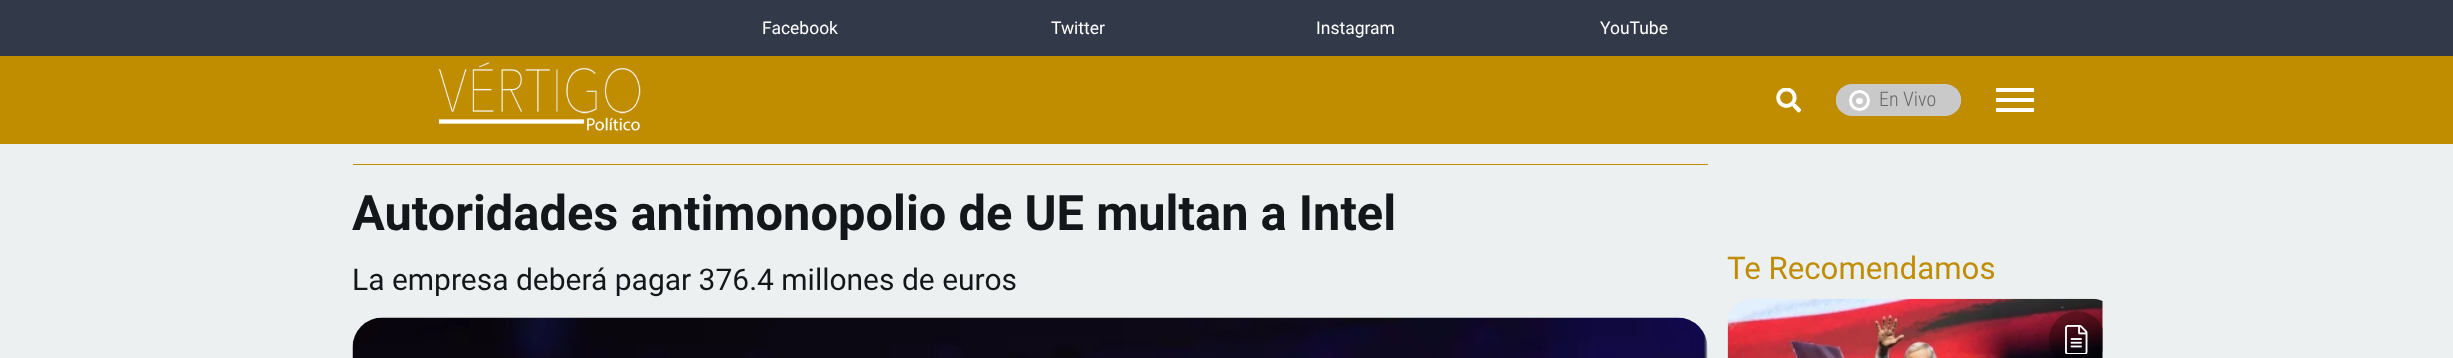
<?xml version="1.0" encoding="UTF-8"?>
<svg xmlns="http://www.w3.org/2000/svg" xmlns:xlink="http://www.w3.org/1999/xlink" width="2453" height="358">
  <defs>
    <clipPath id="clip1"><rect x="1836" y="84" width="125" height="32" rx="16" /></clipPath>
    <clipPath id="clip2"><rect x="353" y="144" width="1750" height="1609" /></clipPath>
  </defs>
  <rect width="100%" height="100%" fill="#ecf0f1" />
  <rect width="2453" height="56" fill="#323949" />
  <rect y="56" width="2453" height="88" fill="#c08d00" />
  <image x="438" y="61" width="203" height="70" xlink:href="image1.png" />
  <image x="1776" y="88" width="25" height="25" xlink:href="image2.png" />
  <rect x="1836" y="84" width="125" height="32" rx="16" fill="#c9c9c9" />
  <g clip-path="url(#clip1)">
    <rect x="1836" y="88" width="125" height="23" fill="#c9c9c9" />
  </g>
  <circle cx="1859.5" cy="100.5" r="9" fill="none" stroke="#ffffff" stroke-width="3" />
  <rect x="1856" y="98" width="7" height="6" rx="3" fill="#ffffff" />
  <rect x="1996" y="88" width="38" height="4" fill="#ffffff" />
  <rect x="1996" y="98" width="38" height="4" fill="#ffffff" />
  <rect x="1996" y="108" width="38" height="4" fill="#ffffff" />
  <rect x="353" y="164" width="1355" height="1" fill="#c08d00" />
  <image x="352" y="317" width="1356" height="41" xlink:href="image3.png" />
  <image x="1727" y="298" width="376" height="60" xlink:href="image4.png" />
  <g clip-path="url(#clip2)">
    <rect x="2049" y="311" width="56" height="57" rx="28" fill="#000000" fill-opacity="0.3" />
  </g>
  <image x="2065" y="325" width="23" height="29" xlink:href="image5.png" />
  <text x="762" y="34" style="font-family: Roboto; font-size: 17.5px; fill: #ffffff">Facebook</text>
  <text x="1051" y="34" style="font-family: Roboto; font-size: 17.5px; fill: #ffffff">Twitter</text>
  <text x="1316" y="34" style="font-family: Roboto; font-size: 17.5px; fill: #ffffff">Instagram</text>
  <text x="1600" y="34" style="font-family: Roboto; font-size: 17.5px; fill: #ffffff">YouTube</text>
  <text x="1879" y="106" style="font-family: Roboto Condensed; font-size: 20px; font-weight: 300; fill: #666666">En Vivo</text>
  <text x="352" y="230" style="font-family: Roboto; font-size: 48.75px; font-weight: bold; fill: #14171a">Autoridades antimonopolio de UE multan a Intel</text>
  <text x="352" y="290" style="font-family: Roboto; font-size: 30px; fill: #14171a">La empresa deberá pagar 376.4 millones de euros</text>
  <text x="1727" y="279" style="font-family: Roboto; font-size: 31.25px; fill: #c08d00">Te Recomendamos</text>
</svg>
